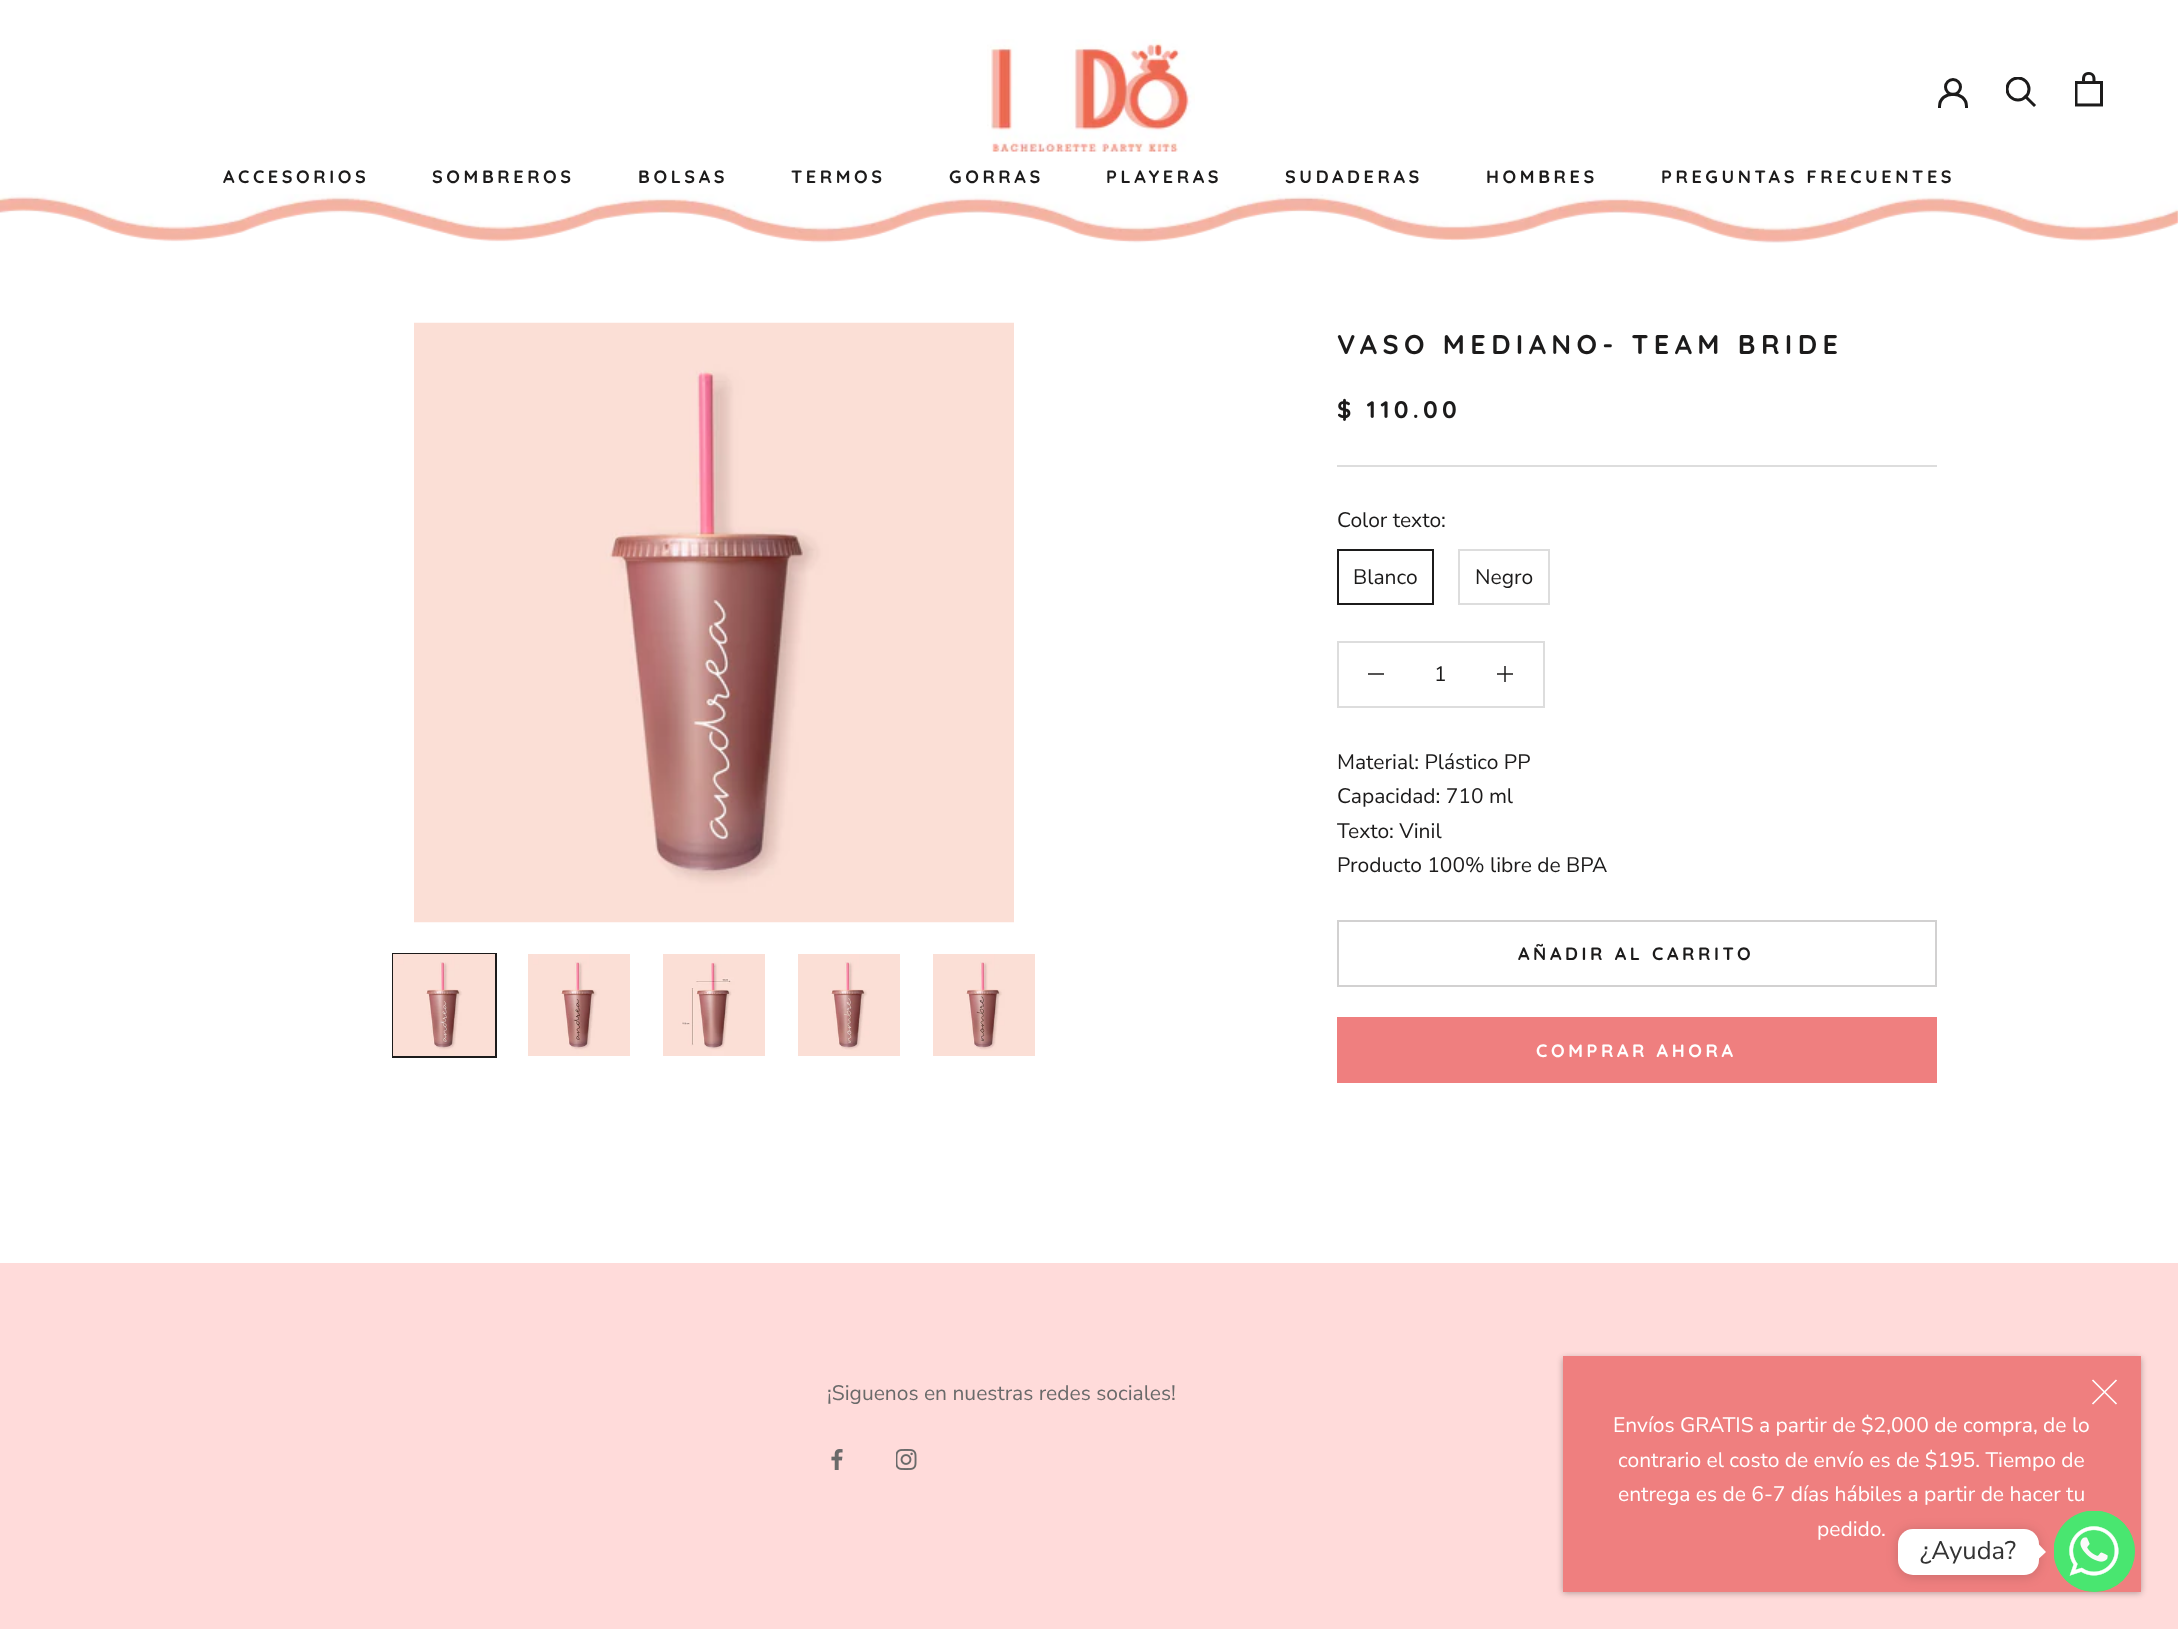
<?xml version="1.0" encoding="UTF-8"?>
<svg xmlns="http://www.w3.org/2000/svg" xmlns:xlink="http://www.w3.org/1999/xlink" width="2178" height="1629">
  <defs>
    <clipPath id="clip1"><rect x="2006" y="77" width="31" height="31" /></clipPath>
  </defs>
  <rect width="100%" height="100%" fill="#ffffff" />
  <rect x="1497" y="673" width="16" height="2" fill="#555454" />
  <image x="0" y="194" width="2178" height="49" xlink:href="image1.png" />
  <image x="987" y="39" width="208" height="113" xlink:href="image2.png" />
  <path d="M 1939.5 106.5 c 0 -16.5 27 -16.5 27 0" fill="none" stroke="#1c1b1b" stroke-width="3" stroke-linecap="square" />
  <circle cx="1953" cy="87" r="7.5" fill="none" stroke="#1c1b1b" stroke-width="3" />
  <path d="M 2034 105 l -8.5 -8.5" fill="none" stroke="#1c1b1b" stroke-width="3" stroke-linecap="square" />
  <g clip-path="url(#clip1)">
    <circle cx="2018" cy="89" r="11" fill="none" stroke="#1c1b1b" stroke-width="3" />
  </g>
  <image x="2075" y="72" width="28" height="35" xlink:href="image3.png" />
  <image x="414" y="322" width="600" height="601" xlink:href="image4.png" />
  <rect x="393" y="954" width="103" height="103" fill="none" stroke="#1c1b1b" stroke-width="2" />
  <image x="393" y="954" width="102" height="102" xlink:href="image5.png" />
  <image x="528" y="954" width="102" height="102" xlink:href="image6.png" />
  <image x="663" y="954" width="102" height="102" xlink:href="image7.png" />
  <image x="798" y="954" width="102" height="102" xlink:href="image8.png" />
  <image x="933" y="954" width="102" height="102" xlink:href="image9.png" />
  <rect x="1337" y="465" width="600" height="2" fill="#dddddd" />
  <rect x="1338" y="550" width="95" height="54" fill="none" stroke="#1c1b1b" stroke-width="2" />
  <rect x="1459" y="550" width="90" height="54" fill="none" stroke="#dddddd" stroke-width="2" />
  <rect x="1338" y="642" width="206" height="65" fill="none" stroke="#dddddd" stroke-width="2" />
  <rect x="1368" y="673" width="16" height="2" fill="#555454" />
  <rect x="1504" y="666" width="2" height="16" fill="#555454" />
  <rect x="1504" y="673" width="2" height="2" fill="#2a2929" />
  <rect x="1338" y="921" width="598" height="65" fill="none" stroke="#d2d1d1" stroke-width="2" />
  <rect x="1338" y="1018" width="598" height="64" fill="none" stroke="#ef7f7f" stroke-width="2" />
  <rect x="1339" y="1019" width="596" height="62" fill="#ef7f7f" />
  <rect y="1263" width="2178" height="366" fill="#ffdbda" />
  <image x="831" y="1449" width="12" height="21" xlink:href="image10.png" />
  <image x="896" y="1449" width="21" height="21" xlink:href="image11.png" />
  <rect x="1563" y="1358" width="578" height="235" fill="#000000" fill-opacity="0.3" filter="blur(3px)" />
  <rect x="1563" y="1356" width="578" height="236" fill="#ef7f7f" />
  <path d="M 2116.5 1380 l -24 24 m 24 0 l -24 -24" fill="none" stroke="#ffffff" stroke-width="1.7" />
  <circle cx="2094.5" cy="1551.5" r="40.5" fill="#49e670" />
  <image x="2054" y="1511" width="81" height="81" xlink:href="image12.png" />
  <rect x="1898" y="1530" width="141" height="47" rx="15" fill="#000000" fill-opacity="0.15" filter="blur(6px)" />
  <rect x="1898" y="1529" width="141" height="46" rx="15" fill="#ffffff" />
  <path d="M 2038.5 1559 v -15 l 7.5 8 z" fill="#ffffff" />
  <text x="223" y="183" style="font-family: Quicksand; font-size: 18px; font-weight: bold; letter-spacing: 3.6px; fill: #1c1b1b">ACCESORIOS</text>
  <text x="432" y="183" style="font-family: Quicksand; font-size: 18px; font-weight: bold; letter-spacing: 3.6px; fill: #1c1b1b">SOMBREROS</text>
  <text x="638" y="183" style="font-family: Quicksand; font-size: 18px; font-weight: bold; letter-spacing: 3.6px; fill: #1c1b1b">BOLSAS</text>
  <text x="791" y="183" style="font-family: Quicksand; font-size: 18px; font-weight: bold; letter-spacing: 3.6px; fill: #1c1b1b">TERMOS</text>
  <text x="949" y="183" style="font-family: Quicksand; font-size: 18px; font-weight: bold; letter-spacing: 3.6px; fill: #1c1b1b">GORRAS</text>
  <text x="1106" y="183" style="font-family: Quicksand; font-size: 18px; font-weight: bold; letter-spacing: 3.6px; fill: #1c1b1b">PLAYERAS</text>
  <text x="1285" y="183" style="font-family: Quicksand; font-size: 18px; font-weight: bold; letter-spacing: 3.6px; fill: #1c1b1b">SUDADERAS</text>
  <text x="1486" y="183" style="font-family: Quicksand; font-size: 18px; font-weight: bold; letter-spacing: 3.6px; fill: #1c1b1b">HOMBRES</text>
  <text x="1661" y="183" style="font-family: Quicksand; font-size: 18px; font-weight: bold; letter-spacing: 3.6px; fill: #1c1b1b">PREGUNTAS FRECUENTES</text>
  <text x="1337" y="354" style="font-family: Quicksand; font-size: 27px; font-weight: bold; letter-spacing: 5.4px; fill: #1c1b1b">VASO MEDIANO- TEAM BRIDE</text>
  <text x="1337" y="418" style="font-family: Quicksand; font-size: 24px; font-weight: bold; letter-spacing: 4.25px; fill: #1c1b1b">$ 110.00</text>
  <text x="1337" y="527" style="font-family: Nunito Sans; font-size: 21px; fill: #1c1b1b">Color texto:</text>
  <text x="1353" y="584" style="font-family: Nunito Sans; font-size: 21px; fill: #1c1b1b">Blanco</text>
  <text x="1475" y="584" style="font-family: Nunito Sans; font-size: 21px; fill: #1c1b1b">Negro</text>
  <text x="1434" y="681" style="font-family: Nunito Sans; font-size: 21px; fill: #1c1b1b">1</text>
  <text x="1337" y="769" style="font-family: Nunito Sans; font-size: 21px; fill: #1c1b1b">Material: Plástico PP</text>
  <text x="1337" y="803" style="font-family: Nunito Sans; font-size: 21px; fill: #1c1b1b">Capacidad: 710 ml</text>
  <text x="1337" y="838" style="font-family: Nunito Sans; font-size: 21px; fill: #1c1b1b">Texto: Vinil</text>
  <text x="1337" y="872" style="font-family: Nunito Sans; font-size: 21px; fill: #1c1b1b">Producto 100% libre de BPA</text>
  <text x="1518" y="960" style="font-family: Quicksand; font-size: 18px; font-weight: bold; letter-spacing: 3.6px; fill: #1c1b1b">AÑADIR AL CARRITO</text>
  <text x="1536" y="1057" style="font-family: Quicksand; font-size: 18px; font-weight: bold; letter-spacing: 3.6px; fill: #ffffff">COMPRAR AHORA</text>
  <text x="827" y="1400" style="font-family: Nunito Sans; font-size: 21px; fill: #6a6a6a">¡Siguenos en nuestras redes sociales!</text>
  <text x="1613" y="1432" style="font-family: Nunito Sans; font-size: 21px; fill: #ffffff">Envíos GRATIS a partir de $2,000 de compra, de lo</text>
  <text x="1618" y="1467" style="font-family: Nunito Sans; font-size: 21px; fill: #ffffff">contrario el costo de envío es de $195. Tiempo de</text>
  <text x="1618" y="1501" style="font-family: Nunito Sans; font-size: 21px; fill: #ffffff">entrega es de 6-7 días hábiles a partir de hacer tu</text>
  <text x="1817" y="1536" style="font-family: Nunito Sans; font-size: 21px; fill: #ffffff">pedido.</text>
  <text x="1920" y="1559" style="font-family: Nunito Sans; font-size: 25.5px; fill: #333333">¿Ayuda?</text>
</svg>
